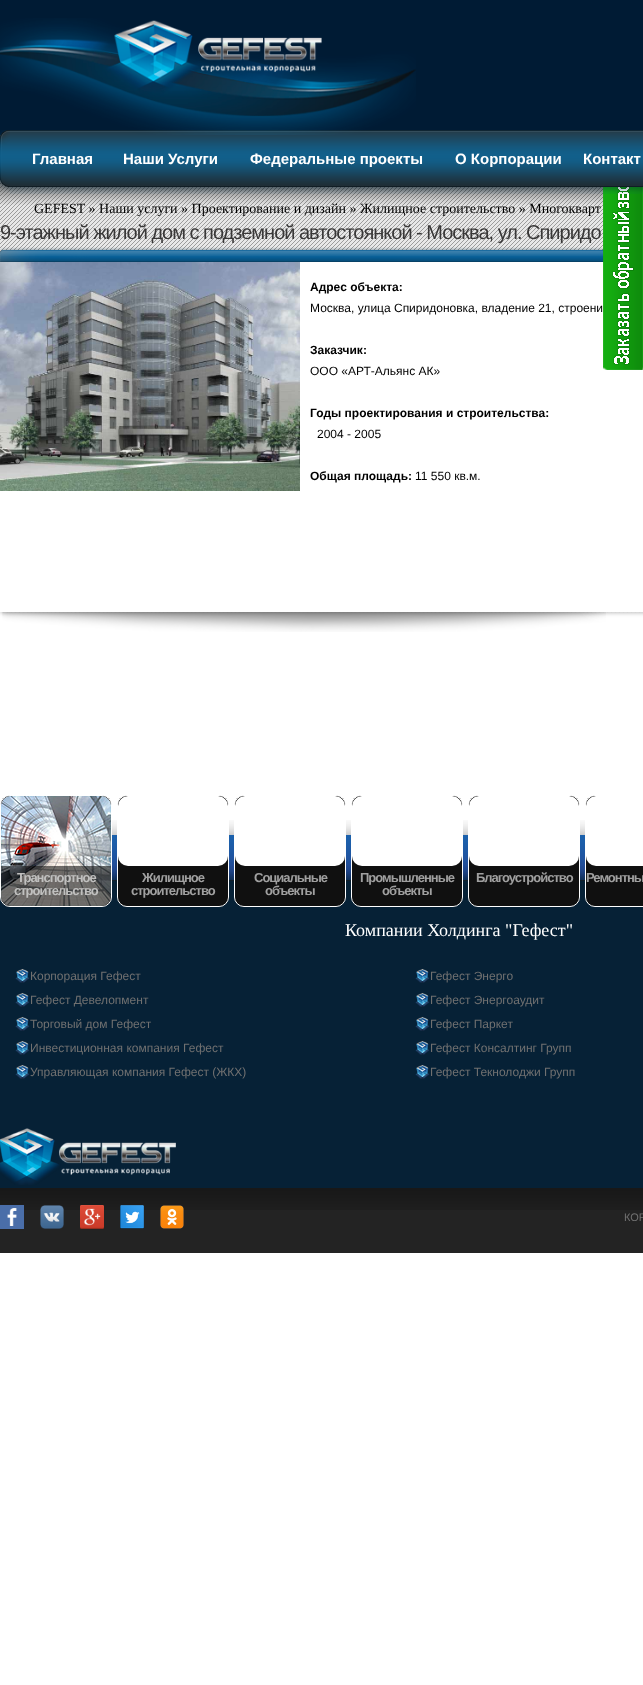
<?xml version="1.0" encoding="UTF-8"?>
<svg xmlns="http://www.w3.org/2000/svg" xmlns:xlink="http://www.w3.org/1999/xlink" width="643" height="1685">
  <defs>
    <clipPath id="clip1"><rect x="1" y="796" width="110" height="110" rx="9" /></clipPath>
    <clipPath id="clip2"><rect x="118" y="796" width="110" height="110" rx="9" /></clipPath>
    <clipPath id="clip3"><rect x="235" y="796" width="110" height="110" rx="9" /></clipPath>
    <clipPath id="clip4"><rect x="352" y="796" width="110" height="110" rx="9" /></clipPath>
    <clipPath id="clip5"><rect x="469" y="796" width="110" height="110" rx="9" /></clipPath>
    <clipPath id="clip6"><rect x="586" y="796" width="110" height="110" rx="9" /></clipPath>
  </defs>
  <rect width="100%" height="100%" fill="#ffffff" />
  <rect width="643" height="135" fill="#001b34" />
  <image x="0" y="135" width="1" height="45" xlink:href="image1.png" />
  <image x="0" y="180" width="643" height="433" xlink:href="image6.png" />
  <image x="0" y="180" width="604" height="25" xlink:href="image7.png" />
  <image x="0" y="130" width="10" height="63" xlink:href="image3.png" />
  <image x="0" y="247" width="604" height="15" xlink:href="image8.png" />
  <rect y="263" width="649" height="350" fill="#2c2c2c" fill-opacity="0.3" filter="blur(2px)" />
  <rect y="262" width="643" height="350" fill="#ffffff" />
  <image x="603" y="187" width="40" height="183" xlink:href="image5.png" />
  <image x="10" y="130" width="633" height="64" xlink:href="image4.png" />
  <image x="0" y="18" width="416" height="117" xlink:href="image2.png" />
  <image x="0" y="262" width="300" height="229" xlink:href="image9.png" />
  <image x="2" y="612" width="604" height="20" xlink:href="image10.png" />
  <rect y="881" width="643" height="307" fill="#062136" />
  <rect x="0.5" y="795.5" width="111" height="111" rx="9.5" fill="#111111" stroke="#ffffff" />
  <g clip-path="url(#clip1)">
    <rect x="1" y="796" width="110" height="70" rx="10" fill="#ffffff" />
  </g>
  <image x="1" y="796" width="110" height="110" xlink:href="image11.png" />
  <g clip-path="url(#clip1)">
    <path d="M 1 866 h 110 v 30 c 0 5.5 -4.5 10 -10 10 h -90 c -5.5 0 -10 -4.5 -10 -10 z" fill="#111111" fill-opacity="0.6" />
  </g>
  <image x="112" y="820" width="473" height="15" xlink:href="image12.png" />
  <image x="112" y="835" width="473" height="46" xlink:href="image13.png" />
  <rect x="117.5" y="795.5" width="111" height="111" rx="9.5" fill="#111111" stroke="#ffffff" />
  <g clip-path="url(#clip2)">
    <rect x="118" y="796" width="110" height="70" rx="10" fill="#ffffff" />
    <path d="M 118 866 h 110 v 30 c 0 5.5 -4.5 10 -10 10 h -90 c -5.5 0 -10 -4.5 -10 -10 z" fill="#111111" fill-opacity="0.6" />
  </g>
  <rect x="234.5" y="795.5" width="111" height="111" rx="9.5" fill="#111111" stroke="#ffffff" />
  <g clip-path="url(#clip3)">
    <rect x="235" y="796" width="110" height="70" rx="10" fill="#ffffff" />
    <path d="M 235 866 h 110 v 30 c 0 5.5 -4.5 10 -10 10 h -90 c -5.5 0 -10 -4.5 -10 -10 z" fill="#111111" fill-opacity="0.6" />
  </g>
  <rect x="351.5" y="795.5" width="111" height="111" rx="9.5" fill="#111111" stroke="#ffffff" />
  <g clip-path="url(#clip4)">
    <rect x="352" y="796" width="110" height="70" rx="10" fill="#ffffff" />
    <path d="M 352 866 h 110 v 30 c 0 5.5 -4.5 10 -10 10 h -90 c -5.5 0 -10 -4.5 -10 -10 z" fill="#111111" fill-opacity="0.6" />
  </g>
  <rect x="468.5" y="795.5" width="111" height="111" rx="9.5" fill="#111111" stroke="#ffffff" />
  <g clip-path="url(#clip5)">
    <rect x="469" y="796" width="110" height="70" rx="10" fill="#ffffff" />
    <path d="M 469 866 h 110 v 30 c 0 5.5 -4.5 10 -10 10 h -90 c -5.5 0 -10 -4.5 -10 -10 z" fill="#111111" fill-opacity="0.6" />
  </g>
  <rect x="585.5" y="795.5" width="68" height="111" rx="9.5" fill="#111111" stroke="#ffffff" />
  <g clip-path="url(#clip6)">
    <rect x="586" y="796" width="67" height="70" rx="10" fill="#ffffff" />
    <path d="M 586 866 h 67 v 30 c 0 5.5 -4.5 10 -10 10 h -47 c -5.5 0 -10 -4.5 -10 -10 z" fill="#111111" fill-opacity="0.6" />
  </g>
  <image x="15" y="969" width="15" height="14" xlink:href="image14.png" />
  <image x="15" y="993" width="15" height="14" xlink:href="image14.png" />
  <image x="15" y="1017" width="15" height="14" xlink:href="image14.png" />
  <image x="15" y="1041" width="15" height="14" xlink:href="image14.png" />
  <image x="15" y="1065" width="15" height="14" xlink:href="image14.png" />
  <image x="415" y="969" width="15" height="14" xlink:href="image15.png" />
  <image x="415" y="993" width="15" height="14" xlink:href="image15.png" />
  <image x="415" y="1017" width="15" height="14" xlink:href="image15.png" />
  <image x="415" y="1041" width="15" height="14" xlink:href="image15.png" />
  <image x="415" y="1065" width="15" height="14" xlink:href="image15.png" />
  <image x="0" y="1128" width="176" height="57" xlink:href="image16.png" />
  <rect y="1210" width="643" height="43" fill="#232323" />
  <image x="0" y="1188" width="643" height="22" xlink:href="image17.png" />
  <image x="0" y="1205" width="24" height="24" xlink:href="image18.png" />
  <image x="40" y="1205" width="24" height="24" xlink:href="image19.png" />
  <image x="80" y="1205" width="24" height="24" xlink:href="image20.png" />
  <image x="120" y="1205" width="24" height="24" xlink:href="image21.png" />
  <image x="160" y="1205" width="24" height="24" xlink:href="image22.png" />
  <text x="32" y="164" style="font-family: Liberation Sans; font-size: 15px; font-weight: bold; fill: #ffffff">Главная</text>
  <text x="123" y="164" style="font-family: Liberation Sans; font-size: 15px; font-weight: bold; fill: #ffffff">Наши Услуги</text>
  <text x="250" y="164" style="font-family: Liberation Sans; font-size: 15px; font-weight: bold; fill: #ffffff">Федеральные проекты</text>
  <text x="455" y="164" style="font-family: Liberation Sans; font-size: 15px; font-weight: bold; fill: #ffffff">О Корпорации</text>
  <text x="583" y="164" style="font-family: Liberation Sans; font-size: 15px; font-weight: bold; fill: #ffffff">Контакт</text>
  <text x="34" y="213" style="font-family: Liberation Serif; font-size: 14px; fill: #000000">GEFEST » Наши услуги » Проектирование и дизайн » Жилищное строительство » Многокварт</text>
  <text x="0" y="239" style="font-family: Liberation Sans; font-size: 20px; letter-spacing: -1px; fill: #383737">9-этажный жилой дом с подземной автостоянкой - Москва, ул. Спиридо</text>
  <text x="310" y="291" style="font-family: Liberation Sans; font-size: 12px; font-weight: bold; fill: #000000">Адрес объекта:</text>
  <text x="310" y="312" style="font-family: Liberation Sans; font-size: 12px; fill: #000000">Москва, улица Спиридоновка, владение 21, строени</text>
  <text x="310" y="354" style="font-family: Liberation Sans; font-size: 12px; font-weight: bold; fill: #000000">Заказчик:</text>
  <text x="310" y="375" style="font-family: Liberation Sans; font-size: 12px; fill: #000000">ООО «АРТ-Альянс АК»</text>
  <text x="310" y="417" style="font-family: Liberation Sans; font-size: 12px; font-weight: bold; fill: #000000">Годы проектирования и строительства:</text>
  <text x="317" y="438" style="font-family: Liberation Sans; font-size: 12px; fill: #000000">2004 - 2005</text>
  <text x="310" y="480" style="font-family: Liberation Sans; font-size: 12px; font-weight: bold; fill: #000000">Общая площадь:</text>
  <text x="415" y="480" style="font-family: Liberation Sans; font-size: 12px; fill: #000000">11 550 кв.м.</text>
  <text x="17" y="882" style="font-family: Liberation Sans; font-size: 13px; font-weight: bold; letter-spacing: -1px; fill: #c0c0bf">Транспортное</text>
  <text x="14" y="895" style="font-family: Liberation Sans; font-size: 13px; font-weight: bold; letter-spacing: -1px; fill: #c0c0bf">строительство</text>
  <text x="142" y="882" style="font-family: Liberation Sans; font-size: 13px; font-weight: bold; letter-spacing: -1px; fill: #a0a0a0">Жилищное</text>
  <text x="131" y="895" style="font-family: Liberation Sans; font-size: 13px; font-weight: bold; letter-spacing: -1px; fill: #a0a0a0">строительство</text>
  <text x="254" y="882" style="font-family: Liberation Sans; font-size: 13px; font-weight: bold; letter-spacing: -1px; fill: #a0a0a0">Социальные</text>
  <text x="265" y="895" style="font-family: Liberation Sans; font-size: 13px; font-weight: bold; letter-spacing: -1px; fill: #a0a0a0">объекты</text>
  <text x="360" y="882" style="font-family: Liberation Sans; font-size: 13px; font-weight: bold; letter-spacing: -1px; fill: #a0a0a0">Промышленные</text>
  <text x="382" y="895" style="font-family: Liberation Sans; font-size: 13px; font-weight: bold; letter-spacing: -1px; fill: #a0a0a0">объекты</text>
  <text x="476" y="882" style="font-family: Liberation Sans; font-size: 13px; font-weight: bold; letter-spacing: -1px; fill: #a0a0a0">Благоустройство</text>
  <text x="586" y="882" style="font-family: Liberation Sans; font-size: 13px; font-weight: bold; letter-spacing: -1px; fill: #a0a0a0">Ремонтны</text>
  <text x="30" y="980" style="font-family: Liberation Sans; font-size: 12px; fill: #707070">Корпорация Гефест</text>
  <text x="30" y="1004" style="font-family: Liberation Sans; font-size: 12px; fill: #707070">Гефест Девелопмент</text>
  <text x="30" y="1028" style="font-family: Liberation Sans; font-size: 12px; fill: #707070">Торговый дом Гефест</text>
  <text x="30" y="1052" style="font-family: Liberation Sans; font-size: 12px; fill: #707070">Инвестиционная компания Гефест</text>
  <text x="30" y="1076" style="font-family: Liberation Sans; font-size: 12px; fill: #707070">Управляющая компания Гефест (ЖКХ)</text>
  <text x="345" y="936" style="font-family: Liberation Serif; font-size: 18px; fill: #ffffff">Компании Холдинга "Гефест"</text>
  <text x="430" y="980" style="font-family: Liberation Sans; font-size: 12px; fill: #707070">Гефест Энерго</text>
  <text x="430" y="1004" style="font-family: Liberation Sans; font-size: 12px; fill: #707070">Гефест Энергоаудит</text>
  <text x="430" y="1028" style="font-family: Liberation Sans; font-size: 12px; fill: #707070">Гефест Паркет</text>
  <text x="430" y="1052" style="font-family: Liberation Sans; font-size: 12px; fill: #707070">Гефест Консалтинг Групп</text>
  <text x="430" y="1076" style="font-family: Liberation Sans; font-size: 12px; fill: #707070">Гефест Текнолоджи Групп</text>
  <text x="624" y="1221" style="font-family: Liberation Sans; font-size: 11px; fill: #707070">КОР</text>
</svg>
